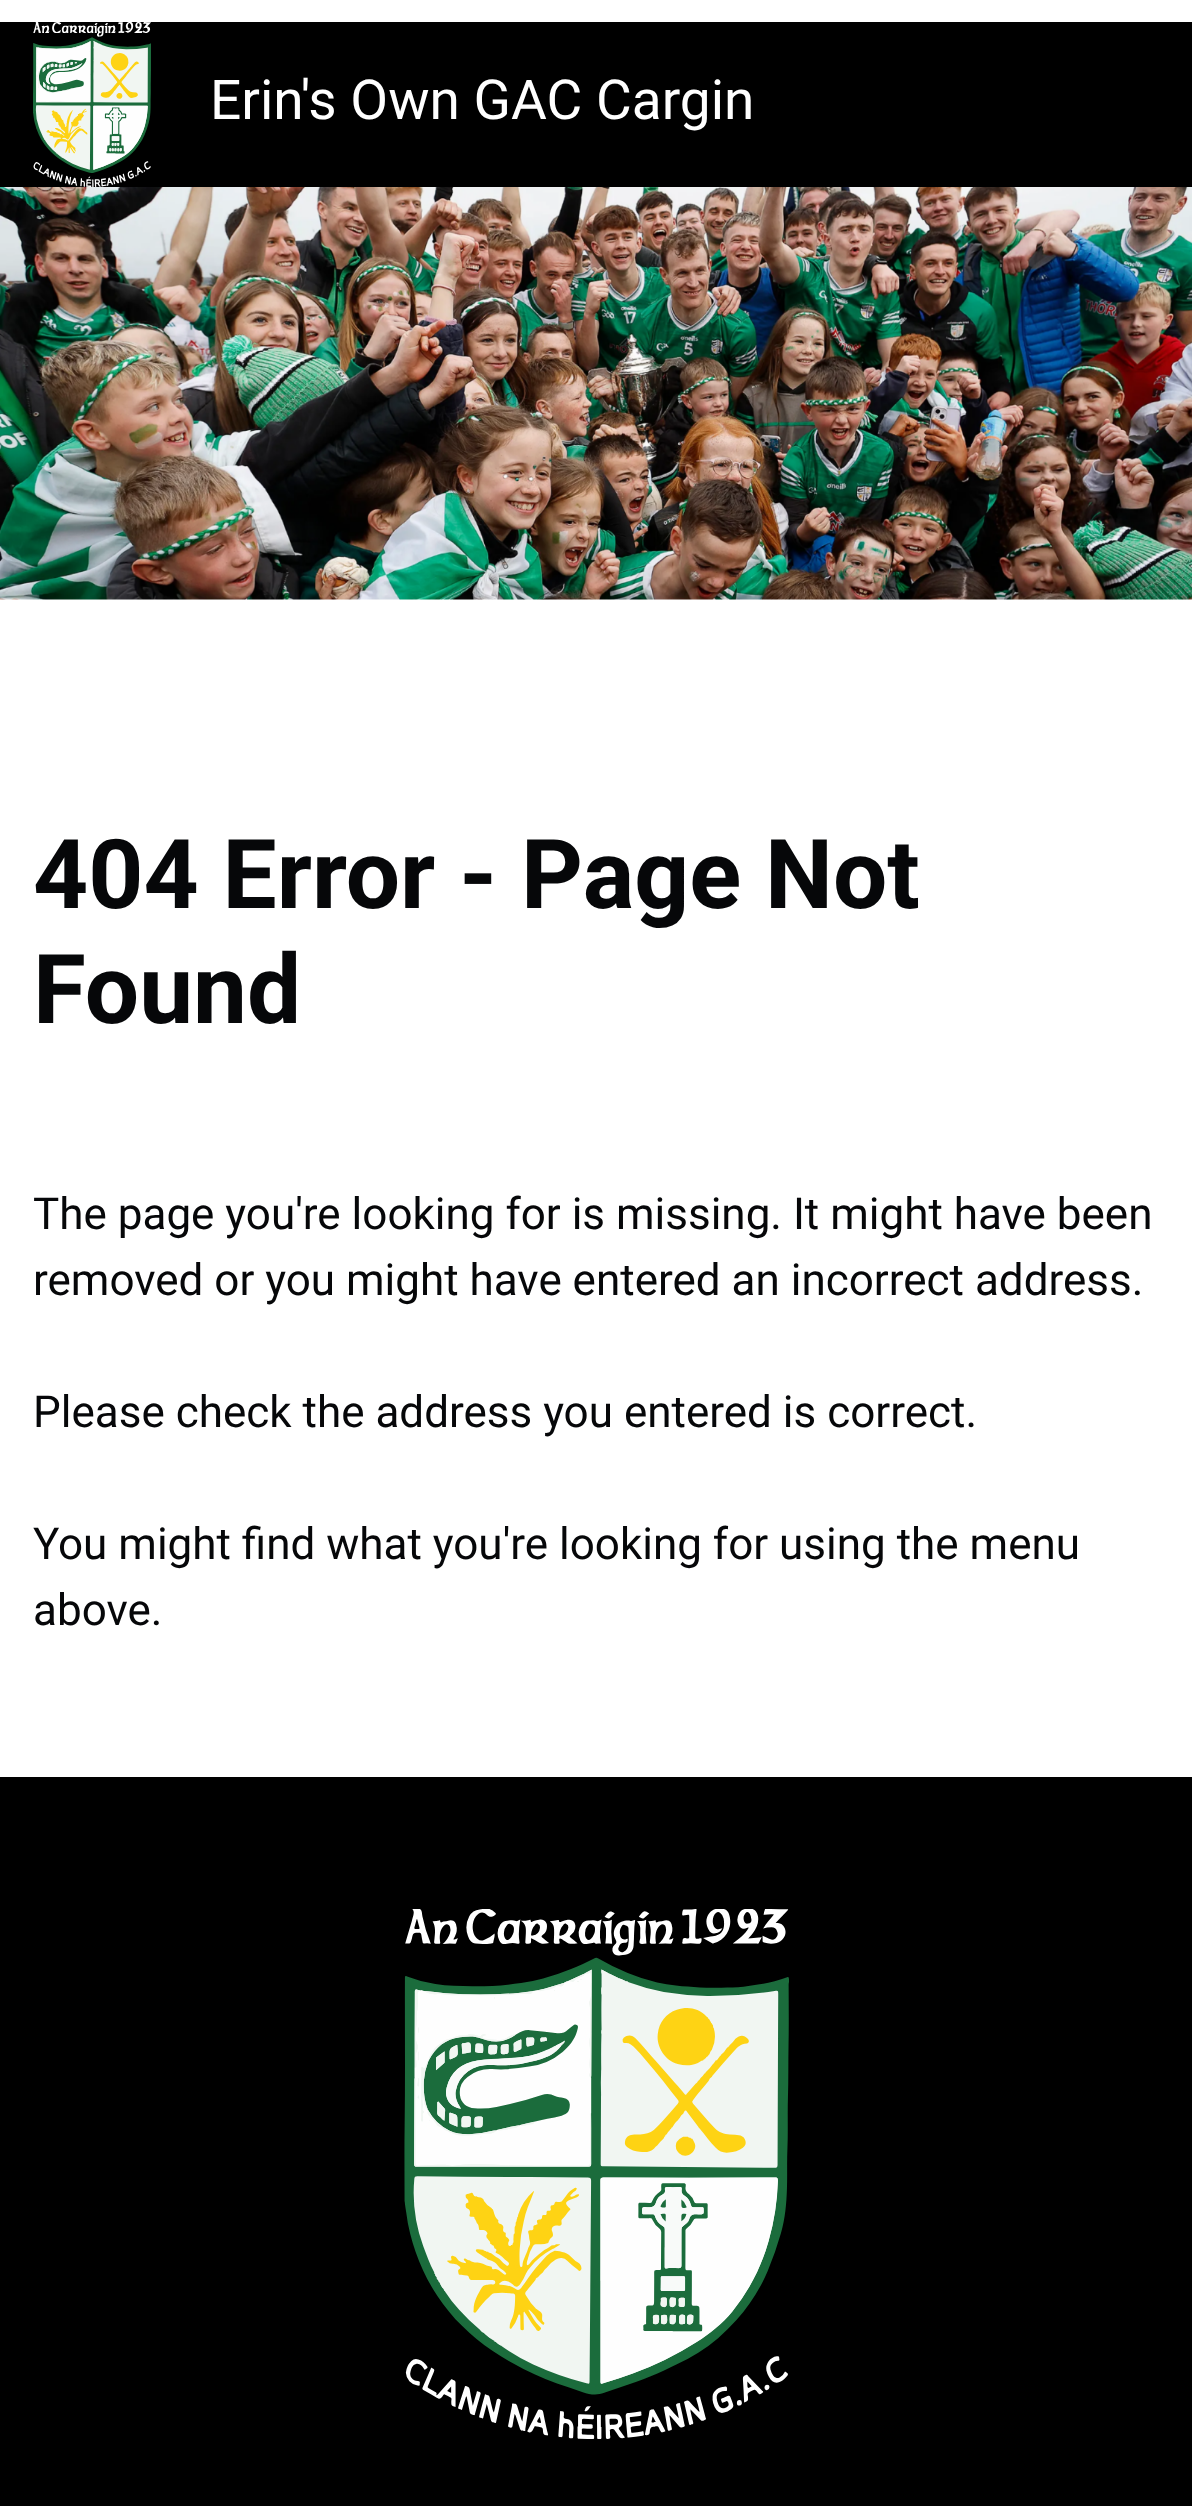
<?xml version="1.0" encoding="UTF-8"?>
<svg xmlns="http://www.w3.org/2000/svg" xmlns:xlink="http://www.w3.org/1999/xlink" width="1192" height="2506">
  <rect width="100%" height="100%" fill="#ffffff" />
  <rect y="22" width="1192" height="165" fill="#000000" />
  <image x="33" y="22" width="118" height="165" xlink:href="image1.png" />
  <image x="0" y="187" width="1192" height="413" xlink:href="image2.png" />
  <rect y="1777" width="1192" height="729" fill="#000000" />
  <image x="404" y="1909" width="385" height="530" xlink:href="image3.png" />
  <text x="210" y="119" style="font-family: Roboto; font-size: 55px; fill: #ffffff">Erin's Own GAC Cargin</text>
  <text x="33" y="908" style="font-family: Roboto; font-size: 96.25px; font-weight: bold; fill: #060709">404 Error - Page Not</text>
  <text x="33" y="1023" style="font-family: Roboto; font-size: 96.25px; font-weight: bold; fill: #060709">Found</text>
  <text x="33" y="1229" style="font-family: Roboto; font-size: 44px; fill: #060709">The page you're looking for is missing. It might have been</text>
  <text x="33" y="1295" style="font-family: Roboto; font-size: 44px; fill: #060709">removed or you might have entered an incorrect address.</text>
  <text x="33" y="1427" style="font-family: Roboto; font-size: 44px; fill: #060709">Please check the address you entered is correct.</text>
  <text x="33" y="1559" style="font-family: Roboto; font-size: 44px; fill: #060709">You might find what you're looking for using the menu</text>
  <text x="33" y="1625" style="font-family: Roboto; font-size: 44px; fill: #060709">above.</text>
</svg>
